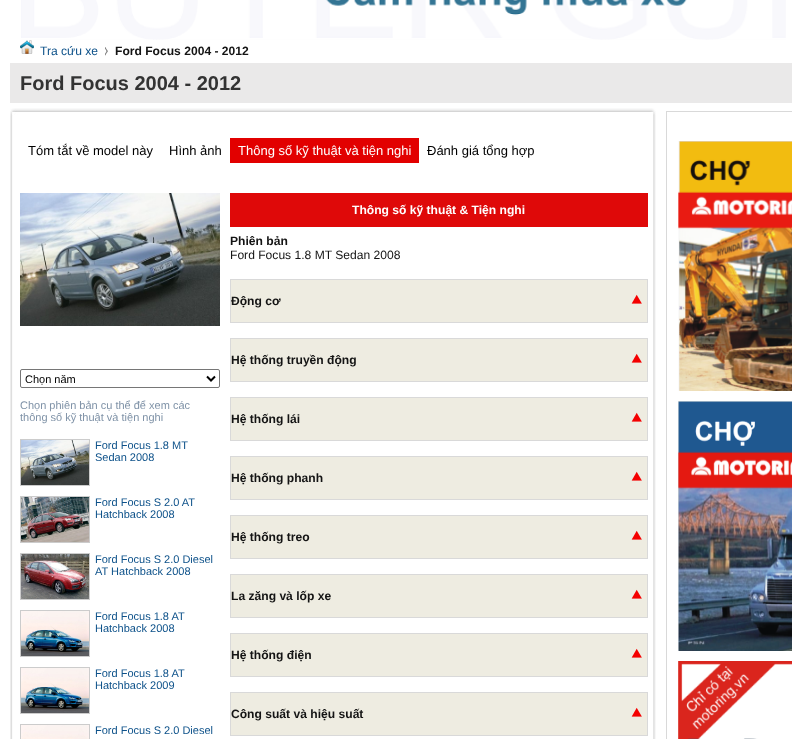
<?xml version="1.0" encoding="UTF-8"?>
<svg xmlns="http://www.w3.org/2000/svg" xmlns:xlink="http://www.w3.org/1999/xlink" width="792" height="739">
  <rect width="100%" height="100%" fill="#ffffff" />
  <image x="21" y="0" width="765" height="40" xlink:href="image1.png" />
  <image x="20" y="40" width="14" height="14" xlink:href="image2.png" />
  <image x="105" y="47" width="3" height="9" xlink:href="image3.png" />
  <rect x="10" y="63" width="782" height="40" fill="#eae9e9" />
  <image x="10" y="108" width="646" height="10" xlink:href="image4.png" />
  <image x="10" y="118" width="646" height="621" xlink:href="image5.png" />
  <rect x="230" y="138" width="189" height="25" fill="#e20000" />
  <image x="20" y="193" width="200" height="133" xlink:href="image6.png" />
  <rect x="20.5" y="369.5" width="199" height="18" rx="1.5" fill="none" stroke="#767676" />
  <path d="M 207 376.5 l 4 4 l 4 -4" fill="none" stroke="#000000" stroke-width="2" />
  <rect x="20.5" y="439.5" width="69" height="46" fill="none" stroke="#cccccc" />
  <image x="21" y="440" width="68" height="45" xlink:href="image7.png" />
  <rect x="20.5" y="496.5" width="69" height="46" fill="none" stroke="#cccccc" />
  <image x="21" y="497" width="68" height="45" xlink:href="image8.png" />
  <rect x="20.5" y="553.5" width="69" height="46" fill="none" stroke="#cccccc" />
  <image x="21" y="554" width="68" height="45" xlink:href="image9.png" />
  <rect x="20.5" y="610.5" width="69" height="46" fill="none" stroke="#cccccc" />
  <image x="21" y="611" width="68" height="45" xlink:href="image10.png" />
  <rect x="20.5" y="667.5" width="69" height="46" fill="none" stroke="#cccccc" />
  <image x="21" y="668" width="68" height="45" xlink:href="image10.png" />
  <rect x="20.5" y="724.5" width="69" height="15" fill="none" stroke="#cccccc" />
  <image x="21" y="725" width="68" height="14" xlink:href="image11.png" />
  <rect x="230" y="193" width="418" height="34" fill="#df0909" />
  <rect x="230.5" y="279.5" width="417" height="43" fill="#eeece1" stroke="#d9d9d9" />
  <image x="631" y="294" width="11" height="10" xlink:href="image12.png" />
  <rect x="230.5" y="338.5" width="417" height="43" fill="#eeece1" stroke="#d9d9d9" />
  <image x="631" y="353" width="11" height="10" xlink:href="image12.png" />
  <rect x="230.5" y="397.5" width="417" height="43" fill="#eeece1" stroke="#d9d9d9" />
  <image x="631" y="412" width="11" height="10" xlink:href="image12.png" />
  <rect x="230.5" y="456.5" width="417" height="43" fill="#eeece1" stroke="#d9d9d9" />
  <image x="631" y="471" width="11" height="10" xlink:href="image12.png" />
  <rect x="230.5" y="515.5" width="417" height="43" fill="#eeece1" stroke="#d9d9d9" />
  <image x="631" y="530" width="11" height="10" xlink:href="image12.png" />
  <rect x="230.5" y="574.5" width="417" height="43" fill="#eeece1" stroke="#d9d9d9" />
  <image x="631" y="589" width="11" height="10" xlink:href="image12.png" />
  <rect x="230.5" y="633.5" width="417" height="43" fill="#eeece1" stroke="#d9d9d9" />
  <image x="631" y="648" width="11" height="10" xlink:href="image12.png" />
  <rect x="230.5" y="692.5" width="417" height="43" fill="#eeece1" stroke="#d9d9d9" />
  <image x="631" y="707" width="11" height="10" xlink:href="image12.png" />
  <rect x="666.5" y="111.5" width="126" height="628" fill="none" stroke="#d9d9d9" />
  <image x="678" y="141" width="114" height="250" xlink:href="image13.png" />
  <image x="678" y="401" width="114" height="250" xlink:href="image14.png" />
  <image x="678" y="661" width="114" height="78" xlink:href="image15.png" />
  <text x="40" y="55" style="font-family: Liberation Sans; font-size: 12.1px; fill: #0e528a">Tra cứu xe</text>
  <text x="115" y="55" style="font-family: Liberation Sans; font-size: 12.1px; font-weight: bold; fill: #141414">Ford Focus 2004 - 2012</text>
  <text x="20" y="90" style="font-family: Liberation Sans; font-size: 20px; font-weight: bold; fill: #333333">Ford Focus 2004 - 2012</text>
  <text x="28" y="155" style="font-family: Liberation Sans; font-size: 13px; fill: #000000">Tóm tắt về model này</text>
  <text x="169" y="155" style="font-family: Liberation Sans; font-size: 13px; fill: #000000">Hình ảnh</text>
  <text x="238" y="155" style="font-family: Liberation Sans; font-size: 13px; fill: #ffffff">Thông số kỹ thuật và tiện nghi</text>
  <text x="427" y="155" style="font-family: Liberation Sans; font-size: 13px; fill: #000000">Đánh giá tổng hợp</text>
  <text x="25" y="383" style="font-family: Liberation Sans; font-size: 11px; fill: #000000">Chọn năm</text>
  <text x="20" y="409" style="font-family: Liberation Sans; font-size: 11px; fill: #7f92a7">Chọn phiên bản cụ thể để xem các</text>
  <text x="20" y="421" style="font-family: Liberation Sans; font-size: 11px; fill: #7f92a7">thông số kỹ thuật và tiện nghi</text>
  <text x="95" y="449" style="font-family: Liberation Sans; font-size: 11px; fill: #0e528a">Ford Focus 1.8 MT</text>
  <text x="95" y="461" style="font-family: Liberation Sans; font-size: 11px; fill: #0e528a">Sedan 2008</text>
  <text x="95" y="506" style="font-family: Liberation Sans; font-size: 11px; fill: #0e528a">Ford Focus S 2.0 AT</text>
  <text x="95" y="518" style="font-family: Liberation Sans; font-size: 11px; fill: #0e528a">Hatchback 2008</text>
  <text x="95" y="563" style="font-family: Liberation Sans; font-size: 11px; fill: #0e528a">Ford Focus S 2.0 Diesel</text>
  <text x="95" y="575" style="font-family: Liberation Sans; font-size: 11px; fill: #0e528a">AT Hatchback 2008</text>
  <text x="95" y="620" style="font-family: Liberation Sans; font-size: 11px; fill: #0e528a">Ford Focus 1.8 AT</text>
  <text x="95" y="632" style="font-family: Liberation Sans; font-size: 11px; fill: #0e528a">Hatchback 2008</text>
  <text x="95" y="677" style="font-family: Liberation Sans; font-size: 11px; fill: #0e528a">Ford Focus 1.8 AT</text>
  <text x="95" y="689" style="font-family: Liberation Sans; font-size: 11px; fill: #0e528a">Hatchback 2009</text>
  <text x="95" y="734" style="font-family: Liberation Sans; font-size: 11px; fill: #0e528a">Ford Focus S 2.0 Diesel</text>
  <text x="352" y="214" style="font-family: Liberation Sans; font-size: 12.1px; font-weight: bold; fill: #ffffff">Thông số kỹ thuật &amp; Tiện nghi</text>
  <text x="230" y="245" style="font-family: Liberation Sans; font-size: 12.1px; font-weight: bold; fill: #141414">Phiên bản</text>
  <text x="230" y="259" style="font-family: Liberation Sans; font-size: 12.1px; fill: #141414">Ford Focus 1.8 MT Sedan 2008</text>
  <text x="231" y="305" style="font-family: Liberation Sans; font-size: 12.1px; font-weight: bold; fill: #141414">Động cơ</text>
  <text x="231" y="364" style="font-family: Liberation Sans; font-size: 12.1px; font-weight: bold; fill: #141414">Hệ thống truyền động</text>
  <text x="231" y="423" style="font-family: Liberation Sans; font-size: 12.1px; font-weight: bold; fill: #141414">Hệ thống lái</text>
  <text x="231" y="482" style="font-family: Liberation Sans; font-size: 12.1px; font-weight: bold; fill: #141414">Hệ thống phanh</text>
  <text x="231" y="541" style="font-family: Liberation Sans; font-size: 12.1px; font-weight: bold; fill: #141414">Hệ thống treo</text>
  <text x="231" y="600" style="font-family: Liberation Sans; font-size: 12.1px; font-weight: bold; fill: #141414">La zăng và lốp xe</text>
  <text x="231" y="659" style="font-family: Liberation Sans; font-size: 12.1px; font-weight: bold; fill: #141414">Hệ thống điện</text>
  <text x="231" y="718" style="font-family: Liberation Sans; font-size: 12.1px; font-weight: bold; fill: #141414">Công suất và hiệu suất</text>
</svg>
